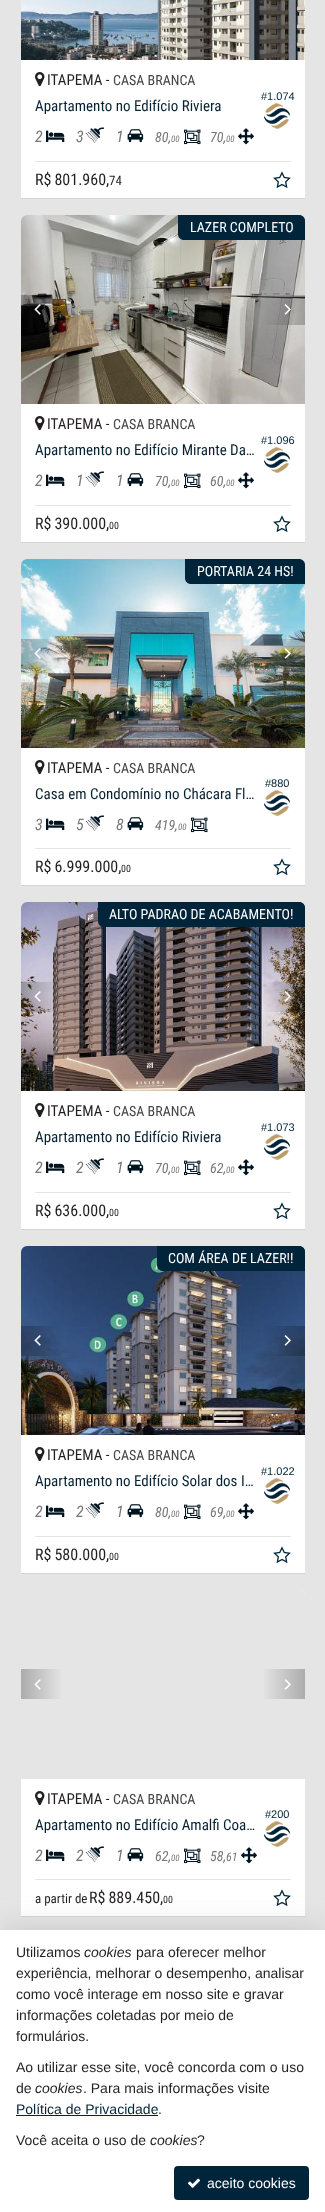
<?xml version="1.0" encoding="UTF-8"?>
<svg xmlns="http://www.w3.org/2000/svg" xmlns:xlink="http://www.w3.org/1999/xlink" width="325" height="2212">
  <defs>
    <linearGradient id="g1" gradientUnits="userSpaceOnUse" x1="63" y1="1684" x2="21" y2="1684"><stop offset="0" stop-color="#e5e5e5" /><stop offset="1" stop-color="#acacac" /></linearGradient>
    <linearGradient id="g2" gradientUnits="userSpaceOnUse" x1="262" y1="1684" x2="305" y2="1684"><stop offset="0" stop-color="#e5e5e5" /><stop offset="1" stop-color="#acacac" /></linearGradient>
  </defs>
  <rect width="100%" height="100%" fill="#e5e5e5" />
  <rect x="21" y="60" width="284" height="138" fill="#ffffff" />
  <image x="21" y="0" width="284" height="60" xlink:href="image1.png" />
  <image x="35" y="72" width="10" height="15" xlink:href="image2.png" />
  <image x="46" y="130" width="19" height="12" xlink:href="image3.png" />
  <image x="85" y="127" width="19" height="16" xlink:href="image4.png" />
  <image x="127" y="129" width="17" height="14" xlink:href="image5.png" />
  <image x="184" y="129" width="17" height="16" xlink:href="image6.png" />
  <image x="238" y="128" width="16" height="17" xlink:href="image7.png" />
  <image x="264" y="103" width="26" height="26" xlink:href="image8.png" />
  <rect x="21" y="198" width="284" height="1" fill="#d5d5d5" />
  <rect x="35" y="161" width="256" height="1" fill="#e5e5e5" />
  <image x="273" y="171" width="18" height="18" xlink:href="image9.png" />
  <path d="M 27 215 h 272 c 3.5 0 6 2.5 6 6 v 322 h -284 v -322 c 0 -3.5 2.5 -6 6 -6 z" fill="#ffffff" />
  <image x="21" y="215" width="284" height="189" xlink:href="image10.png" />
  <image x="34" y="304" width="7" height="11" xlink:href="image11.png" />
  <image x="284" y="304" width="7" height="11" xlink:href="image12.png" />
  <path d="M 178 215 h 121 c 3.5 0 6 2.5 6 6 v 19 h -121 c -3.5 0 -6 -2.5 -6 -6 z" fill="#002439" />
  <image x="35" y="416" width="10" height="15" xlink:href="image2.png" />
  <image x="46" y="474" width="19" height="12" xlink:href="image3.png" />
  <image x="85" y="471" width="19" height="16" xlink:href="image4.png" />
  <image x="127" y="473" width="17" height="14" xlink:href="image5.png" />
  <image x="184" y="473" width="17" height="16" xlink:href="image6.png" />
  <image x="238" y="472" width="16" height="17" xlink:href="image7.png" />
  <image x="264" y="447" width="26" height="26" xlink:href="image8.png" />
  <rect x="21" y="542" width="284" height="1" fill="#d5d5d5" />
  <rect x="35" y="505" width="256" height="1" fill="#e5e5e5" />
  <image x="273" y="515" width="18" height="18" xlink:href="image9.png" />
  <path d="M 27 559 h 272 c 3.5 0 6 2.5 6 6 v 321 h -284 v -321 c 0 -3.5 2.5 -6 6 -6 z" fill="#ffffff" />
  <image x="21" y="559" width="284" height="189" xlink:href="image13.png" />
  <image x="34" y="648" width="7" height="11" xlink:href="image14.png" />
  <image x="284" y="648" width="7" height="11" xlink:href="image15.png" />
  <path d="M 185 559 h 114 c 3.5 0 6 2.5 6 6 v 19 h -114 c -3.5 0 -6 -2.5 -6 -6 z" fill="#002439" />
  <image x="35" y="760" width="10" height="15" xlink:href="image2.png" />
  <image x="46" y="818" width="19" height="12" xlink:href="image3.png" />
  <image x="85" y="815" width="19" height="16" xlink:href="image4.png" />
  <image x="127" y="817" width="17" height="14" xlink:href="image5.png" />
  <image x="191" y="817" width="17" height="16" xlink:href="image6.png" />
  <image x="264" y="790" width="26" height="26" xlink:href="image8.png" />
  <rect x="21" y="885" width="284" height="1" fill="#d5d5d5" />
  <rect x="35" y="848" width="256" height="1" fill="#e5e5e5" />
  <image x="273" y="858" width="18" height="18" xlink:href="image9.png" />
  <path d="M 27 902 h 272 c 3.5 0 6 2.5 6 6 v 322 h -284 v -322 c 0 -3.5 2.5 -6 6 -6 z" fill="#ffffff" />
  <image x="21" y="902" width="284" height="189" xlink:href="image16.png" />
  <image x="34" y="991" width="7" height="11" xlink:href="image17.png" />
  <image x="284" y="991" width="7" height="11" xlink:href="image18.png" />
  <path d="M 98 902 h 201 c 3.5 0 6 2.5 6 6 v 19 h -201 c -3.5 0 -6 -2.5 -6 -6 z" fill="#002439" />
  <image x="35" y="1103" width="10" height="15" xlink:href="image2.png" />
  <image x="46" y="1161" width="19" height="12" xlink:href="image3.png" />
  <image x="85" y="1158" width="19" height="16" xlink:href="image4.png" />
  <image x="127" y="1160" width="17" height="14" xlink:href="image5.png" />
  <image x="184" y="1160" width="17" height="16" xlink:href="image6.png" />
  <image x="238" y="1159" width="16" height="17" xlink:href="image7.png" />
  <image x="264" y="1134" width="26" height="26" xlink:href="image8.png" />
  <rect x="21" y="1229" width="284" height="1" fill="#d5d5d5" />
  <rect x="35" y="1192" width="256" height="1" fill="#e5e5e5" />
  <image x="273" y="1202" width="18" height="18" xlink:href="image9.png" />
  <path d="M 27 1246 h 272 c 3.5 0 6 2.5 6 6 v 322 h -284 v -322 c 0 -3.5 2.5 -6 6 -6 z" fill="#ffffff" />
  <image x="21" y="1246" width="284" height="189" xlink:href="image19.png" />
  <image x="34" y="1335" width="7" height="11" xlink:href="image20.png" />
  <image x="284" y="1335" width="7" height="11" xlink:href="image21.png" />
  <path d="M 157 1246 h 142 c 3.5 0 6 2.5 6 6 v 19 h -142 c -3.5 0 -6 -2.5 -6 -6 z" fill="#002439" />
  <image x="35" y="1447" width="10" height="15" xlink:href="image2.png" />
  <image x="46" y="1505" width="19" height="12" xlink:href="image3.png" />
  <image x="85" y="1502" width="19" height="16" xlink:href="image4.png" />
  <image x="127" y="1504" width="17" height="14" xlink:href="image5.png" />
  <image x="184" y="1504" width="17" height="16" xlink:href="image6.png" />
  <image x="238" y="1503" width="16" height="17" xlink:href="image7.png" />
  <image x="264" y="1478" width="26" height="26" xlink:href="image8.png" />
  <rect x="21" y="1573" width="284" height="1" fill="#d5d5d5" />
  <rect x="35" y="1536" width="256" height="1" fill="#e5e5e5" />
  <image x="273" y="1546" width="18" height="18" xlink:href="image9.png" />
  <path d="M 27 1590 h 272 c 3.5 0 6 2.5 6 6 v 321 h -284 v -321 c 0 -3.5 2.5 -6 6 -6 z" fill="#ffffff" />
  <path d="M 27 1590 h 272 c 3.5 0 6 2.5 6 6 v 183 h -284 v -183 c 0 -3.5 2.5 -6 6 -6 z" fill="#e5e5e5" />
  <rect x="21" y="1669" width="40" height="30" fill="url(#g1)" />
  <image x="34" y="1679" width="7" height="11" xlink:href="image22.png" />
  <rect x="264" y="1669" width="41" height="30" fill="url(#g2)" />
  <image x="284" y="1679" width="7" height="11" xlink:href="image23.png" />
  <image x="35" y="1791" width="10" height="15" xlink:href="image2.png" />
  <image x="46" y="1849" width="19" height="12" xlink:href="image3.png" />
  <image x="85" y="1846" width="19" height="16" xlink:href="image4.png" />
  <image x="127" y="1848" width="17" height="14" xlink:href="image5.png" />
  <image x="184" y="1848" width="17" height="16" xlink:href="image6.png" />
  <image x="241" y="1847" width="16" height="17" xlink:href="image7.png" />
  <image x="264" y="1821" width="26" height="26" xlink:href="image8.png" />
  <rect x="21" y="1916" width="284" height="1" fill="#d5d5d5" />
  <rect x="35" y="1879" width="256" height="1" fill="#e5e5e5" />
  <image x="273" y="1889" width="18" height="18" xlink:href="image9.png" />
  <rect y="1930" width="325" height="282" fill="#9f9f9f" fill-opacity="0.44" filter="blur(15px)" />
  <rect y="1930" width="325" height="282" fill="#ffffff" />
  <rect x="16" y="2115" width="142" height="1" fill="#002439" />
  <rect x="174" y="2166" width="135" height="34" rx="4" fill="#002439" />
  <image x="188" y="2178" width="12" height="10" xlink:href="image24.png" />
  <text x="47" y="85" style="font-family: Roboto Condensed; font-size: 15px; fill: #231f20">ITAPEMA -</text>
  <text x="113" y="85" style="font-family: Roboto Condensed; font-size: 14px; fill: #444444">CASA BRANCA</text>
  <text x="35" y="111" style="font-family: Roboto Condensed; font-size: 15px; fill: #072232">Apartamento no Edifício Riviera</text>
  <text x="35" y="142" style="font-family: Roboto Condensed; font-size: 16px; font-style: italic; fill: #777777">2</text>
  <text x="76" y="142" style="font-family: Roboto Condensed; font-size: 16px; font-style: italic; fill: #777777">3</text>
  <text x="116" y="142" style="font-family: Roboto Condensed; font-size: 16px; font-style: italic; fill: #777777">1</text>
  <text x="155" y="142" style="font-family: Roboto Condensed; font-size: 14px; font-style: italic; fill: #777777">80,</text>
  <text x="171" y="142" style="font-family: Roboto Condensed; font-size: 9px; font-style: italic; fill: #777777">00</text>
  <text x="210" y="142" style="font-family: Roboto Condensed; font-size: 14px; font-style: italic; fill: #777777">70,</text>
  <text x="226" y="142" style="font-family: Roboto Condensed; font-size: 9px; font-style: italic; fill: #777777">00</text>
  <text x="261" y="100" style="font-family: Liberation Sans; font-size: 11px; fill: #002439">#1.074</text>
  <text x="35" y="185" style="font-family: Roboto Condensed; font-size: 16px; fill: #231f20">R$ 801.960,</text>
  <text x="109" y="185" style="font-family: Roboto Condensed; font-size: 13px; fill: #231f20">74</text>
  <text x="190" y="232" style="font-family: Roboto Condensed; font-size: 14px; fill: #ffffff">LAZER COMPLETO</text>
  <text x="47" y="429" style="font-family: Roboto Condensed; font-size: 15px; fill: #231f20">ITAPEMA -</text>
  <text x="113" y="429" style="font-family: Roboto Condensed; font-size: 14px; fill: #444444">CASA BRANCA</text>
  <text x="35" y="455" style="font-family: Roboto Condensed; font-size: 15px; fill: #072232">Apartamento no Edifício Mirante Da…</text>
  <text x="35" y="486" style="font-family: Roboto Condensed; font-size: 16px; font-style: italic; fill: #777777">2</text>
  <text x="76" y="486" style="font-family: Roboto Condensed; font-size: 16px; font-style: italic; fill: #777777">1</text>
  <text x="116" y="486" style="font-family: Roboto Condensed; font-size: 16px; font-style: italic; fill: #777777">1</text>
  <text x="155" y="486" style="font-family: Roboto Condensed; font-size: 14px; font-style: italic; fill: #777777">70,</text>
  <text x="171" y="486" style="font-family: Roboto Condensed; font-size: 9px; font-style: italic; fill: #777777">00</text>
  <text x="210" y="486" style="font-family: Roboto Condensed; font-size: 14px; font-style: italic; fill: #777777">60,</text>
  <text x="226" y="486" style="font-family: Roboto Condensed; font-size: 9px; font-style: italic; fill: #777777">00</text>
  <text x="261" y="444" style="font-family: Liberation Sans; font-size: 11px; fill: #002439">#1.096</text>
  <text x="35" y="529" style="font-family: Roboto Condensed; font-size: 16px; fill: #231f20">R$ 390.000,</text>
  <text x="109" y="529" style="font-family: Roboto Condensed; font-size: 10px; fill: #231f20">00</text>
  <text x="197" y="576" style="font-family: Roboto Condensed; font-size: 14px; fill: #ffffff">PORTARIA 24 HS!</text>
  <text x="47" y="773" style="font-family: Roboto Condensed; font-size: 15px; fill: #231f20">ITAPEMA -</text>
  <text x="113" y="773" style="font-family: Roboto Condensed; font-size: 14px; fill: #444444">CASA BRANCA</text>
  <text x="35" y="799" style="font-family: Roboto Condensed; font-size: 15px; fill: #072232">Casa em Condomínio no Chácara Fl…</text>
  <text x="35" y="830" style="font-family: Roboto Condensed; font-size: 16px; font-style: italic; fill: #777777">3</text>
  <text x="76" y="830" style="font-family: Roboto Condensed; font-size: 16px; font-style: italic; fill: #777777">5</text>
  <text x="116" y="830" style="font-family: Roboto Condensed; font-size: 16px; font-style: italic; fill: #777777">8</text>
  <text x="155" y="830" style="font-family: Roboto Condensed; font-size: 14px; font-style: italic; fill: #777777">419,</text>
  <text x="178" y="830" style="font-family: Roboto Condensed; font-size: 9px; font-style: italic; fill: #777777">00</text>
  <text x="265" y="787" style="font-family: Liberation Sans; font-size: 11px; fill: #002439">#880</text>
  <text x="35" y="872" style="font-family: Roboto Condensed; font-size: 16px; fill: #231f20">R$ 6.999.000,</text>
  <text x="121" y="872" style="font-family: Roboto Condensed; font-size: 10px; fill: #231f20">00</text>
  <text x="109" y="919" style="font-family: Roboto Condensed; font-size: 14px; fill: #ffffff">ALTO PADRAO DE ACABAMENTO!</text>
  <text x="47" y="1116" style="font-family: Roboto Condensed; font-size: 15px; fill: #231f20">ITAPEMA -</text>
  <text x="113" y="1116" style="font-family: Roboto Condensed; font-size: 14px; fill: #444444">CASA BRANCA</text>
  <text x="35" y="1142" style="font-family: Roboto Condensed; font-size: 15px; fill: #072232">Apartamento no Edifício Riviera</text>
  <text x="35" y="1173" style="font-family: Roboto Condensed; font-size: 16px; font-style: italic; fill: #777777">2</text>
  <text x="76" y="1173" style="font-family: Roboto Condensed; font-size: 16px; font-style: italic; fill: #777777">2</text>
  <text x="116" y="1173" style="font-family: Roboto Condensed; font-size: 16px; font-style: italic; fill: #777777">1</text>
  <text x="155" y="1173" style="font-family: Roboto Condensed; font-size: 14px; font-style: italic; fill: #777777">70,</text>
  <text x="171" y="1173" style="font-family: Roboto Condensed; font-size: 9px; font-style: italic; fill: #777777">00</text>
  <text x="210" y="1173" style="font-family: Roboto Condensed; font-size: 14px; font-style: italic; fill: #777777">62,</text>
  <text x="226" y="1173" style="font-family: Roboto Condensed; font-size: 9px; font-style: italic; fill: #777777">00</text>
  <text x="261" y="1131" style="font-family: Liberation Sans; font-size: 11px; fill: #002439">#1.073</text>
  <text x="35" y="1216" style="font-family: Roboto Condensed; font-size: 16px; fill: #231f20">R$ 636.000,</text>
  <text x="109" y="1216" style="font-family: Roboto Condensed; font-size: 10px; fill: #231f20">00</text>
  <text x="168" y="1263" style="font-family: Roboto Condensed; font-size: 14px; fill: #ffffff">COM ÁREA DE LAZER!!</text>
  <text x="47" y="1460" style="font-family: Roboto Condensed; font-size: 15px; fill: #231f20">ITAPEMA -</text>
  <text x="113" y="1460" style="font-family: Roboto Condensed; font-size: 14px; fill: #444444">CASA BRANCA</text>
  <text x="35" y="1486" style="font-family: Roboto Condensed; font-size: 15px; fill: #072232">Apartamento no Edifício Solar dos I…</text>
  <text x="35" y="1517" style="font-family: Roboto Condensed; font-size: 16px; font-style: italic; fill: #777777">2</text>
  <text x="76" y="1517" style="font-family: Roboto Condensed; font-size: 16px; font-style: italic; fill: #777777">2</text>
  <text x="116" y="1517" style="font-family: Roboto Condensed; font-size: 16px; font-style: italic; fill: #777777">1</text>
  <text x="155" y="1517" style="font-family: Roboto Condensed; font-size: 14px; font-style: italic; fill: #777777">80,</text>
  <text x="171" y="1517" style="font-family: Roboto Condensed; font-size: 9px; font-style: italic; fill: #777777">00</text>
  <text x="210" y="1517" style="font-family: Roboto Condensed; font-size: 14px; font-style: italic; fill: #777777">69,</text>
  <text x="226" y="1517" style="font-family: Roboto Condensed; font-size: 9px; font-style: italic; fill: #777777">00</text>
  <text x="261" y="1475" style="font-family: Liberation Sans; font-size: 11px; fill: #002439">#1.022</text>
  <text x="35" y="1560" style="font-family: Roboto Condensed; font-size: 16px; fill: #231f20">R$ 580.000,</text>
  <text x="109" y="1560" style="font-family: Roboto Condensed; font-size: 10px; fill: #231f20">00</text>
  <text x="47" y="1804" style="font-family: Roboto Condensed; font-size: 15px; fill: #231f20">ITAPEMA -</text>
  <text x="113" y="1804" style="font-family: Roboto Condensed; font-size: 14px; fill: #444444">CASA BRANCA</text>
  <text x="35" y="1830" style="font-family: Roboto Condensed; font-size: 15px; fill: #072232">Apartamento no Edifício Amalfi Coa…</text>
  <text x="35" y="1861" style="font-family: Roboto Condensed; font-size: 16px; font-style: italic; fill: #777777">2</text>
  <text x="76" y="1861" style="font-family: Roboto Condensed; font-size: 16px; font-style: italic; fill: #777777">2</text>
  <text x="116" y="1861" style="font-family: Roboto Condensed; font-size: 16px; font-style: italic; fill: #777777">1</text>
  <text x="155" y="1861" style="font-family: Roboto Condensed; font-size: 14px; font-style: italic; fill: #777777">62,</text>
  <text x="171" y="1861" style="font-family: Roboto Condensed; font-size: 9px; font-style: italic; fill: #777777">00</text>
  <text x="210" y="1861" style="font-family: Roboto Condensed; font-size: 14px; font-style: italic; fill: #777777">58,</text>
  <text x="226" y="1861" style="font-family: Roboto Condensed; font-size: 12px; font-style: italic; fill: #777777">61</text>
  <text x="265" y="1818" style="font-family: Liberation Sans; font-size: 11px; fill: #002439">#200</text>
  <text x="35" y="1903" style="font-family: Roboto Condensed; font-size: 13px; fill: #231f20">a partir de</text>
  <text x="89" y="1903" style="font-family: Roboto Condensed; font-size: 16px; fill: #231f20">R$ 889.450,</text>
  <text x="163" y="1903" style="font-family: Roboto Condensed; font-size: 10px; fill: #231f20">00</text>
  <text x="16" y="1957" style="font-family: Liberation Sans; font-size: 14px; fill: #231f20">Utilizamos</text>
  <text x="84" y="1957" style="font-family: Liberation Sans; font-size: 14px; font-style: italic; fill: #231f20">cookies</text>
  <text x="136" y="1957" style="font-family: Liberation Sans; font-size: 14px; fill: #231f20">para oferecer melhor</text>
  <text x="16" y="1978" style="font-family: Liberation Sans; font-size: 14px; fill: #231f20">experiência, melhorar o desempenho, analisar</text>
  <text x="16" y="1999" style="font-family: Liberation Sans; font-size: 14px; fill: #231f20">como você interage em nosso site e gravar</text>
  <text x="16" y="2020" style="font-family: Liberation Sans; font-size: 14px; fill: #231f20">informações coletadas por meio de</text>
  <text x="16" y="2041" style="font-family: Liberation Sans; font-size: 14px; fill: #231f20">formulários.</text>
  <text x="16" y="2072" style="font-family: Liberation Sans; font-size: 14px; fill: #231f20">Ao utilizar esse site, você concorda com o uso</text>
  <text x="16" y="2093" style="font-family: Liberation Sans; font-size: 14px; fill: #231f20">de</text>
  <text x="35" y="2093" style="font-family: Liberation Sans; font-size: 14px; font-style: italic; fill: #231f20">cookies</text>
  <text x="83" y="2093" style="font-family: Liberation Sans; font-size: 14px; fill: #231f20">. Para mais informações visite</text>
  <text x="16" y="2114" style="font-family: Liberation Sans; font-size: 14px; fill: #002439">Política de Privacidade</text>
  <text x="158" y="2114" style="font-family: Liberation Sans; font-size: 14px; fill: #231f20">.</text>
  <text x="16" y="2145" style="font-family: Liberation Sans; font-size: 14px; fill: #231f20">Você aceita o uso de</text>
  <text x="150" y="2145" style="font-family: Liberation Sans; font-size: 14px; font-style: italic; fill: #231f20">cookies</text>
  <text x="197" y="2145" style="font-family: Liberation Sans; font-size: 14px; fill: #231f20">?</text>
  <text x="207" y="2188" style="font-family: Liberation Sans; font-size: 14px; fill: #ffffff">aceito cookies</text>
</svg>
